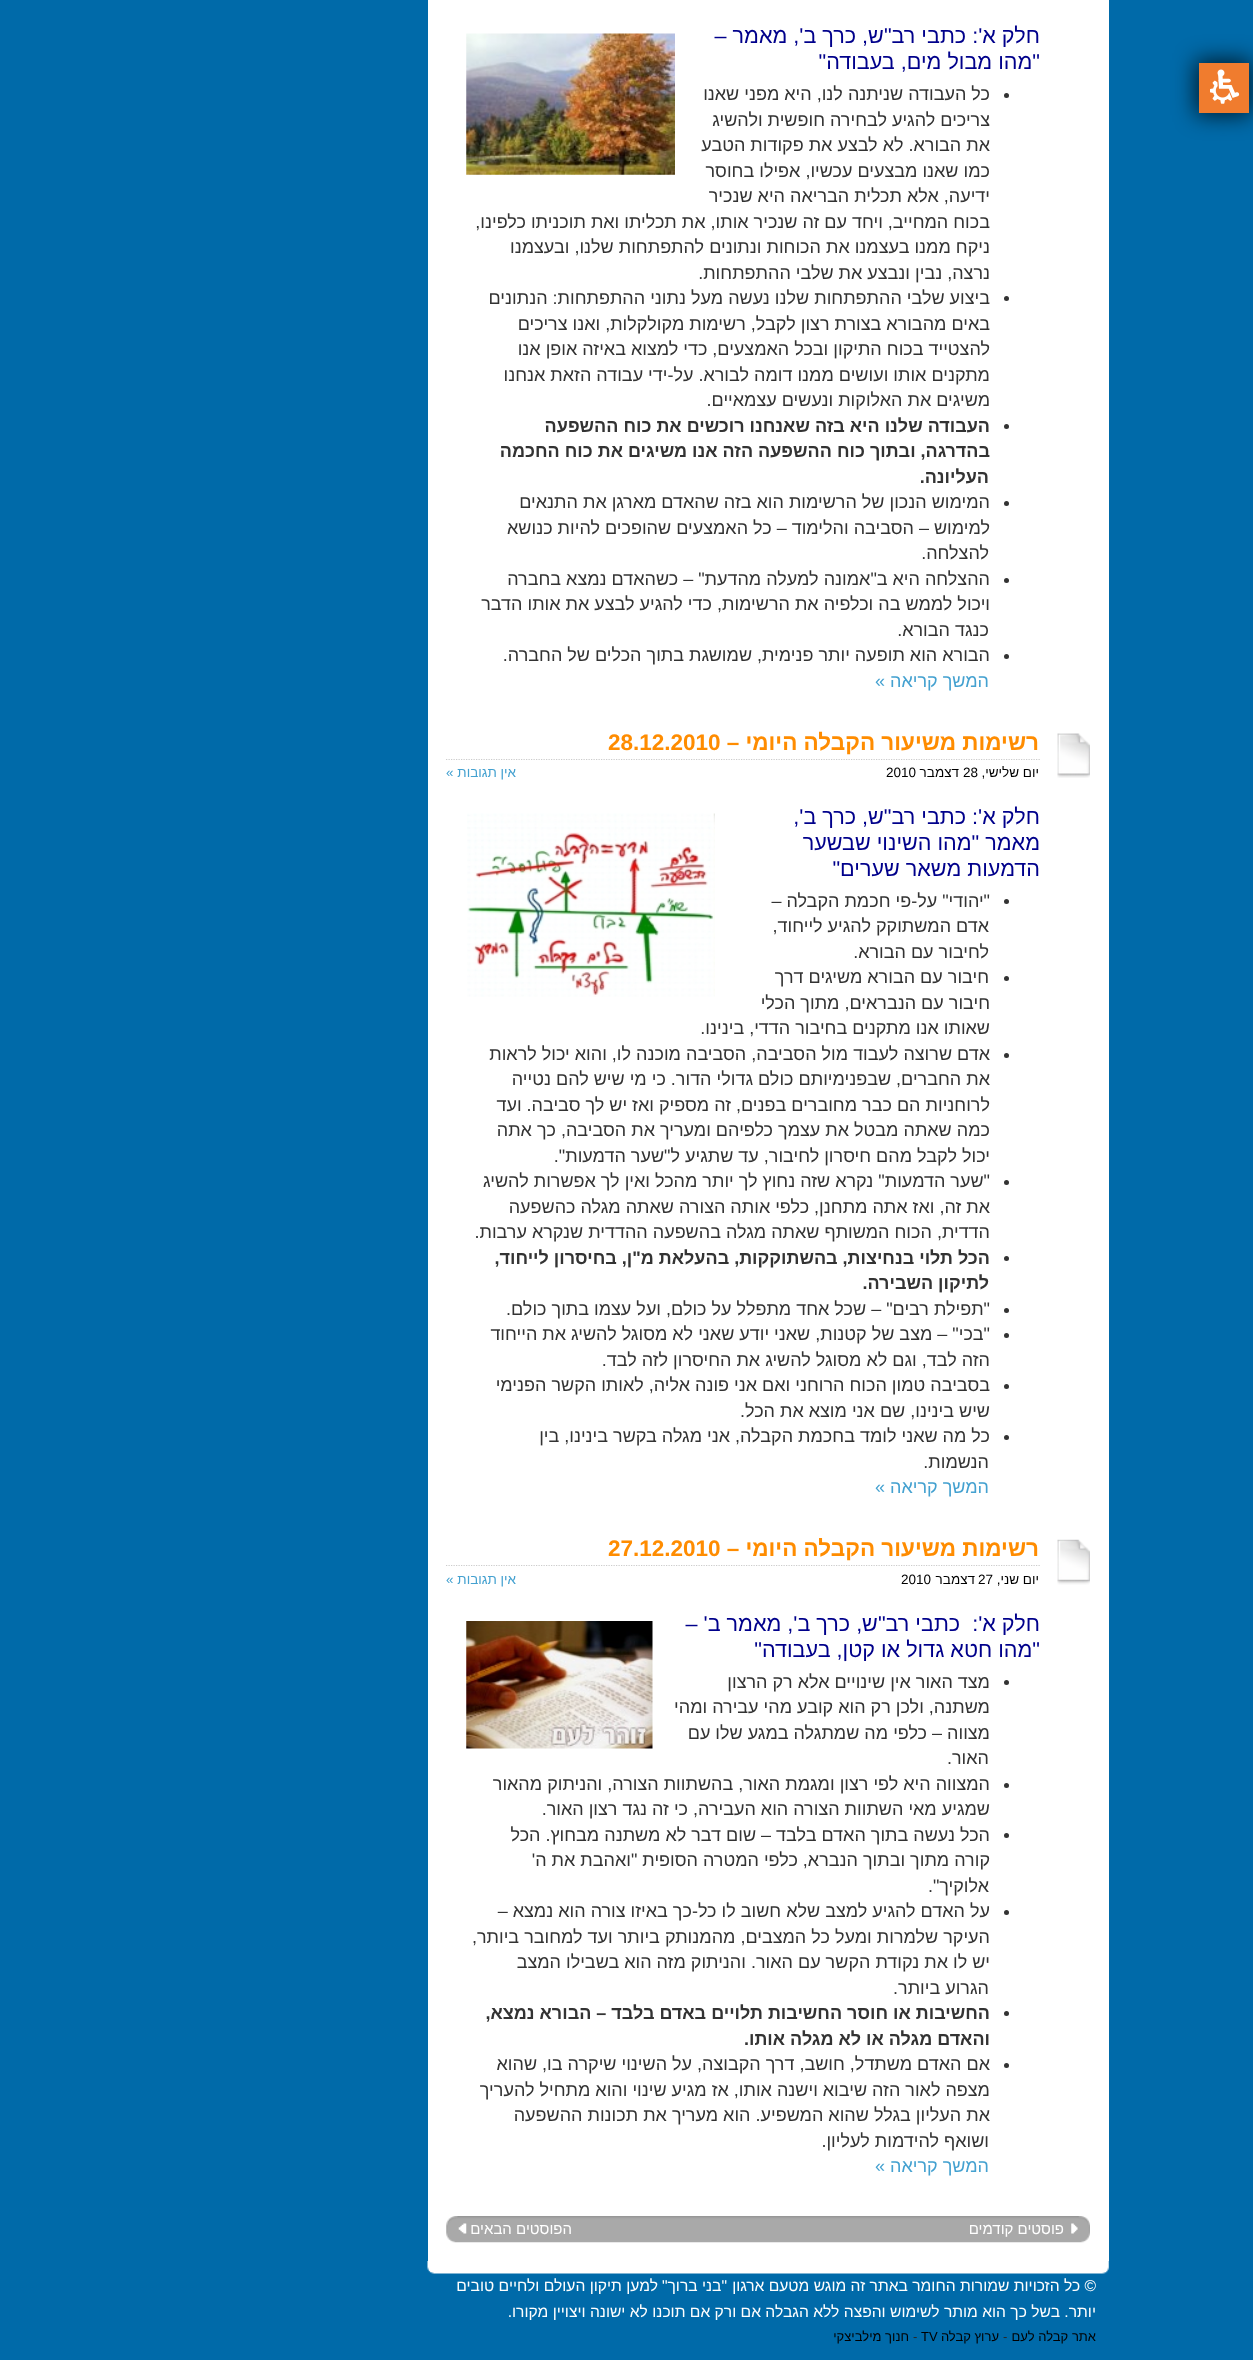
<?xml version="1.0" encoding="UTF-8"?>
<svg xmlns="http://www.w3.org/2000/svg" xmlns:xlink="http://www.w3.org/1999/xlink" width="1253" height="2360">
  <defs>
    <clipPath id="clip1"><rect x="446" y="1538" width="644" height="678" /></clipPath>
  </defs>
  <rect width="100%" height="100%" fill="#006aa9" />
  <rect x="1196" y="60" width="55" height="55" fill="#000000" fill-opacity="0.75" filter="blur(11px)" />
  <rect x="1199" y="63" width="50" height="50" fill="#f07c2e" />
  <image x="1210" y="69" width="30" height="35" xlink:href="image1.png" />
  <rect x="428" width="681" height="2261" fill="#ffffff" />
  <image x="466" y="33" width="209" height="142" xlink:href="image2.png" />
  <circle cx="1006.5" cy="95.5" r="2.5" fill="#333333" />
  <circle cx="1006.5" cy="298.5" r="2.5" fill="#333333" />
  <circle cx="1006.5" cy="426.5" r="2.5" fill="#333333" />
  <circle cx="1006.5" cy="503.5" r="2.5" fill="#333333" />
  <circle cx="1006.5" cy="580.5" r="2.5" fill="#333333" />
  <circle cx="1006.5" cy="656.5" r="2.5" fill="#333333" />
  <image x="1057" y="733" width="33" height="45" xlink:href="image3.png" />
  <path d="M 446 759.5 h 594" fill="none" stroke="#cccccc" stroke-width="1.2" stroke-dasharray="1.25 1.25" />
  <image x="467" y="813" width="248" height="184" xlink:href="image4.png" />
  <circle cx="1006.5" cy="901.5" r="2.5" fill="#333333" />
  <circle cx="1006.5" cy="978.5" r="2.5" fill="#333333" />
  <circle cx="1006.5" cy="1055.5" r="2.5" fill="#333333" />
  <circle cx="1006.5" cy="1182.5" r="2.5" fill="#333333" />
  <circle cx="1006.5" cy="1258.5" r="2.5" fill="#333333" />
  <circle cx="1006.5" cy="1310.5" r="2.5" fill="#333333" />
  <circle cx="1006.5" cy="1335.5" r="2.5" fill="#333333" />
  <circle cx="1006.5" cy="1386.5" r="2.5" fill="#333333" />
  <circle cx="1006.5" cy="1437.5" r="2.5" fill="#333333" />
  <image x="1057" y="1539" width="33" height="46" xlink:href="image5.png" />
  <path d="M 446 1565.5 h 594" fill="none" stroke="#cccccc" stroke-width="1.2" stroke-dasharray="1.25 1.25" />
  <image x="466" y="1621" width="187" height="128" xlink:href="image6.png" />
  <circle cx="1006.5" cy="1682.5" r="2.5" fill="#333333" />
  <circle cx="1006.5" cy="1785.5" r="2.5" fill="#333333" />
  <circle cx="1006.5" cy="1835.5" r="2.5" fill="#333333" />
  <circle cx="1006.5" cy="1912.5" r="2.5" fill="#333333" />
  <circle cx="1006.5" cy="2013.5" r="2.5" fill="#333333" />
  <circle cx="1006.5" cy="2065.5" r="2.5" fill="#333333" />
  <image x="446" y="2216" width="644" height="27" xlink:href="image7.png" />
  <image x="1071" y="2223" width="7" height="11" xlink:href="image8.png" />
  <image x="458" y="2223" width="9" height="11" xlink:href="image9.png" />
  <image x="427" y="2261" width="682" height="13" xlink:href="image10.png" />
  <text x="1040" y="43" style="font-family: Liberation Sans; font-size: 21.6px; direction: rtl; fill: #00008b">חלק א': כתבי רב"ש, כרך ב', מאמר –</text>
  <text x="1040" y="69" style="font-family: Liberation Sans; font-size: 21.6px; direction: rtl; fill: #00008b">"מהו מבול מים, בעבודה"</text>
  <text x="990" y="100" style="font-family: Liberation Sans; font-size: 18px; direction: rtl; fill: #333333">כל העבודה שניתנה לנו, היא מפני שאנו</text>
  <text x="990" y="126" style="font-family: Liberation Sans; font-size: 18px; direction: rtl; fill: #333333">צריכים להגיע לבחירה חופשית ולהשיג</text>
  <text x="990" y="151" style="font-family: Liberation Sans; font-size: 18px; direction: rtl; fill: #333333">את הבורא. לא לבצע את פקודות הטבע</text>
  <text x="990" y="177" style="font-family: Liberation Sans; font-size: 18px; direction: rtl; fill: #333333">כמו שאנו מבצעים עכשיו, אפילו בחוסר</text>
  <text x="990" y="202" style="font-family: Liberation Sans; font-size: 18px; direction: rtl; fill: #333333">ידיעה, אלא תכלית הבריאה היא שנכיר</text>
  <text x="990" y="228" style="font-family: Liberation Sans; font-size: 18px; direction: rtl; fill: #333333">בכוח המחייב, ויחד עם זה שנכיר אותו, את תכליתו ואת תוכניתו כלפינו,</text>
  <text x="990" y="253" style="font-family: Liberation Sans; font-size: 18px; direction: rtl; fill: #333333">ניקח ממנו בעצמנו את הכוחות ונתונים להתפתחות שלנו, ובעצמנו</text>
  <text x="990" y="279" style="font-family: Liberation Sans; font-size: 18px; direction: rtl; fill: #333333">נרצה, נבין ונבצע את שלבי ההתפתחות.</text>
  <text x="990" y="304" style="font-family: Liberation Sans; font-size: 18px; direction: rtl; fill: #333333">ביצוע שלבי ההתפתחות שלנו נעשה מעל נתוני ההתפתחות: הנתונים</text>
  <text x="990" y="330" style="font-family: Liberation Sans; font-size: 18px; direction: rtl; fill: #333333">באים מהבורא בצורת רצון לקבל, רשימות מקולקלות, ואנו צריכים</text>
  <text x="990" y="355" style="font-family: Liberation Sans; font-size: 18px; direction: rtl; fill: #333333">להצטייד בכוח התיקון ובכל האמצעים, כדי למצוא באיזה אופן אנו</text>
  <text x="990" y="381" style="font-family: Liberation Sans; font-size: 18px; direction: rtl; fill: #333333">מתקנים אותו ועושים ממנו דומה לבורא. על-ידי עבודה הזאת אנחנו</text>
  <text x="990" y="406" style="font-family: Liberation Sans; font-size: 18px; direction: rtl; fill: #333333">משיגים את האלוקות ונעשים עצמאיים.</text>
  <text x="990" y="432" style="font-family: Liberation Sans; font-size: 18px; font-weight: bold; direction: rtl; fill: #333333">העבודה שלנו היא בזה שאנחנו רוכשים את כוח ההשפעה</text>
  <text x="990" y="457" style="font-family: Liberation Sans; font-size: 18px; font-weight: bold; direction: rtl; fill: #333333">בהדרגה, ובתוך כוח ההשפעה הזה אנו משיגים את כוח החכמה</text>
  <text x="989" y="483" style="font-family: Liberation Sans; font-size: 18px; font-weight: bold; direction: rtl; fill: #333333">העליונה.</text>
  <text x="990" y="508" style="font-family: Liberation Sans; font-size: 18px; direction: rtl; fill: #333333">המימוש הנכון של הרשימות הוא בזה שהאדם מארגן את התנאים</text>
  <text x="990" y="534" style="font-family: Liberation Sans; font-size: 18px; direction: rtl; fill: #333333">למימוש – הסביבה והלימוד – כל האמצעים שהופכים להיות כנושא</text>
  <text x="989" y="559" style="font-family: Liberation Sans; font-size: 18px; direction: rtl; fill: #333333">להצלחה.</text>
  <text x="990" y="585" style="font-family: Liberation Sans; font-size: 18px; direction: rtl; fill: #333333">ההצלחה היא ב"אמונה למעלה מהדעת" – כשהאדם נמצא בחברה</text>
  <text x="990" y="610" style="font-family: Liberation Sans; font-size: 18px; direction: rtl; fill: #333333">ויכול לממש בה וכלפיה את הרשימות, כדי להגיע לבצע את אותו הדבר</text>
  <text x="989" y="636" style="font-family: Liberation Sans; font-size: 18px; direction: rtl; fill: #333333">כנגד הבורא.</text>
  <text x="990" y="661" style="font-family: Liberation Sans; font-size: 18px; direction: rtl; fill: #333333">הבורא הוא תופעה יותר פנימית, שמושגת בתוך הכלים של החברה.</text>
  <text x="989" y="687" style="font-family: Liberation Sans; font-size: 18px; direction: rtl; fill: #44a1d0">המשך קריאה »</text>
  <text x="1039" y="750" style="font-family: Liberation Sans; font-size: 22.5px; font-weight: bold; direction: rtl; fill: #ff8c00">רשימות משיעור הקבלה היומי –</text>
  <text x="608" y="750" style="font-family: Liberation Sans; font-size: 22.5px; font-weight: bold; fill: #ff8c00">28.12.2010</text>
  <text x="1039" y="777" style="font-family: Liberation Sans; font-size: 13.5px; direction: rtl; fill: #000000">יום שלישי,</text>
  <text x="963" y="777" style="font-family: Liberation Sans; font-size: 13.5px; fill: #000000">28</text>
  <text x="959" y="777" style="font-family: Liberation Sans; font-size: 13.5px; direction: rtl; fill: #000000">דצמבר</text>
  <text x="886" y="777" style="font-family: Liberation Sans; font-size: 13.5px; fill: #000000">2010</text>
  <text x="516" y="777" style="font-family: Liberation Sans; font-size: 13.5px; direction: rtl; fill: #44a1d0">אין תגובות »</text>
  <text x="1040" y="824" style="font-family: Liberation Sans; font-size: 21.6px; direction: rtl; fill: #00008b">חלק א': כתבי רב"ש, כרך ב',</text>
  <text x="1040" y="850" style="font-family: Liberation Sans; font-size: 21.6px; direction: rtl; fill: #00008b">מאמר "מהו השינוי שבשער</text>
  <text x="1040" y="876" style="font-family: Liberation Sans; font-size: 21.6px; direction: rtl; fill: #00008b">הדמעות משאר שערים"</text>
  <text x="990" y="907" style="font-family: Liberation Sans; font-size: 18px; direction: rtl; fill: #333333">"יהודי" על-פי חכמת הקבלה –</text>
  <text x="989" y="932" style="font-family: Liberation Sans; font-size: 18px; direction: rtl; fill: #333333">אדם המשתוקק להגיע לייחוד,</text>
  <text x="989" y="958" style="font-family: Liberation Sans; font-size: 18px; direction: rtl; fill: #333333">לחיבור עם הבורא.</text>
  <text x="989" y="983" style="font-family: Liberation Sans; font-size: 18px; direction: rtl; fill: #333333">חיבור עם הבורא משיגים דרך</text>
  <text x="990" y="1009" style="font-family: Liberation Sans; font-size: 18px; direction: rtl; fill: #333333">חיבור עם הנבראים, מתוך הכלי</text>
  <text x="990" y="1034" style="font-family: Liberation Sans; font-size: 18px; direction: rtl; fill: #333333">שאותו אנו מתקנים בחיבור הדדי, בינינו.</text>
  <text x="990" y="1060" style="font-family: Liberation Sans; font-size: 18px; direction: rtl; fill: #333333">אדם שרוצה לעבוד מול הסביבה, הסביבה מוכנה לו, והוא יכול לראות</text>
  <text x="990" y="1085" style="font-family: Liberation Sans; font-size: 18px; direction: rtl; fill: #333333">את החברים, שבפנימיותם כולם גדולי הדור. כי מי שיש להם נטייה</text>
  <text x="990" y="1111" style="font-family: Liberation Sans; font-size: 18px; direction: rtl; fill: #333333">לרוחניות הם כבר מחוברים בפנים, זה מספיק ואז יש לך סביבה. ועד</text>
  <text x="990" y="1136" style="font-family: Liberation Sans; font-size: 18px; direction: rtl; fill: #333333">כמה שאתה מבטל את עצמך כלפיהם ומעריך את הסביבה, כך אתה</text>
  <text x="990" y="1162" style="font-family: Liberation Sans; font-size: 18px; direction: rtl; fill: #333333">יכול לקבל מהם חיסרון לחיבור, עד שתגיע ל"שער הדמעות".</text>
  <text x="990" y="1187" style="font-family: Liberation Sans; font-size: 18px; direction: rtl; fill: #333333">"שער הדמעות" נקרא שזה נחוץ לך יותר מהכל ואין לך אפשרות להשיג</text>
  <text x="990" y="1213" style="font-family: Liberation Sans; font-size: 18px; direction: rtl; fill: #333333">את זה, ואז אתה מתחנן, כלפי אותה הצורה שאתה מגלה כהשפעה</text>
  <text x="990" y="1238" style="font-family: Liberation Sans; font-size: 18px; direction: rtl; fill: #333333">הדדית, הכוח המשותף שאתה מגלה בהשפעה ההדדית שנקרא ערבות.</text>
  <text x="990" y="1264" style="font-family: Liberation Sans; font-size: 18px; font-weight: bold; direction: rtl; fill: #333333">הכל תלוי בנחיצות, בהשתוקקות, בהעלאת מ"ן, בחיסרון לייחוד,</text>
  <text x="989" y="1289" style="font-family: Liberation Sans; font-size: 18px; font-weight: bold; direction: rtl; fill: #333333">לתיקון השבירה.</text>
  <text x="990" y="1315" style="font-family: Liberation Sans; font-size: 18px; direction: rtl; fill: #333333">"תפילת רבים" – שכל אחד מתפלל על כולם, ועל עצמו בתוך כולם.</text>
  <text x="990" y="1340" style="font-family: Liberation Sans; font-size: 18px; direction: rtl; fill: #333333">"בכי" – מצב של קטנות, שאני יודע שאני לא מסוגל להשיג את הייחוד</text>
  <text x="990" y="1366" style="font-family: Liberation Sans; font-size: 18px; direction: rtl; fill: #333333">הזה לבד, וגם לא מסוגל להשיג את החיסרון לזה לבד.</text>
  <text x="990" y="1391" style="font-family: Liberation Sans; font-size: 18px; direction: rtl; fill: #333333">בסביבה טמון הכוח הרוחני ואם אני פונה אליה, לאותו הקשר הפנימי</text>
  <text x="990" y="1417" style="font-family: Liberation Sans; font-size: 18px; direction: rtl; fill: #333333">שיש בינינו, שם אני מוצא את הכל.</text>
  <text x="990" y="1442" style="font-family: Liberation Sans; font-size: 18px; direction: rtl; fill: #333333">כל מה שאני לומד בחכמת הקבלה, אני מגלה בקשר בינינו, בין</text>
  <text x="989" y="1468" style="font-family: Liberation Sans; font-size: 18px; direction: rtl; fill: #333333">הנשמות.</text>
  <text x="989" y="1493" style="font-family: Liberation Sans; font-size: 18px; direction: rtl; fill: #44a1d0">המשך קריאה »</text>
  <g clip-path="url(#clip1)">
    <text x="1039" y="1556" style="font-family: Liberation Sans; font-size: 22.5px; font-weight: bold; direction: rtl; fill: #ff8c00">רשימות משיעור הקבלה היומי –</text>
  </g>
  <text x="608" y="1556" style="font-family: Liberation Sans; font-size: 22.5px; font-weight: bold; fill: #ff8c00">27.12.2010</text>
  <text x="1039" y="1584" style="font-family: Liberation Sans; font-size: 13.5px; direction: rtl; fill: #000000">יום שני,</text>
  <text x="978" y="1584" style="font-family: Liberation Sans; font-size: 13.5px; fill: #000000">27</text>
  <text x="975" y="1584" style="font-family: Liberation Sans; font-size: 13.5px; direction: rtl; fill: #000000">דצמבר</text>
  <text x="901" y="1584" style="font-family: Liberation Sans; font-size: 13.5px; fill: #000000">2010</text>
  <text x="516" y="1584" style="font-family: Liberation Sans; font-size: 13.5px; direction: rtl; fill: #44a1d0">אין תגובות »</text>
  <text x="1040" y="1631" style="font-family: Liberation Sans; font-size: 21.6px; direction: rtl; fill: #00008b" xml:space="preserve">חלק א':  כתבי רב"ש, כרך ב', מאמר ב' –</text>
  <text x="1040" y="1657" style="font-family: Liberation Sans; font-size: 21.6px; direction: rtl; fill: #00008b">"מהו חטא גדול או קטן, בעבודה"</text>
  <text x="990" y="1688" style="font-family: Liberation Sans; font-size: 18px; direction: rtl; fill: #333333">מצד האור אין שינויים אלא רק הרצון</text>
  <text x="990" y="1713" style="font-family: Liberation Sans; font-size: 18px; direction: rtl; fill: #333333">משתנה, ולכן רק הוא קובע מהי עבירה ומהי</text>
  <text x="990" y="1739" style="font-family: Liberation Sans; font-size: 18px; direction: rtl; fill: #333333">מצווה – כלפי מה שמתגלה במגע שלו עם</text>
  <text x="989" y="1764" style="font-family: Liberation Sans; font-size: 18px; direction: rtl; fill: #333333">האור.</text>
  <text x="990" y="1790" style="font-family: Liberation Sans; font-size: 18px; direction: rtl; fill: #333333">המצווה היא לפי רצון ומגמת האור, בהשתוות הצורה, והניתוק מהאור</text>
  <text x="990" y="1815" style="font-family: Liberation Sans; font-size: 18px; direction: rtl; fill: #333333">שמגיע מאי השתוות הצורה הוא העבירה, כי זה נגד רצון האור.</text>
  <text x="990" y="1841" style="font-family: Liberation Sans; font-size: 18px; direction: rtl; fill: #333333">הכל נעשה בתוך האדם בלבד – שום דבר לא משתנה מבחוץ. הכל</text>
  <text x="990" y="1866" style="font-family: Liberation Sans; font-size: 18px; direction: rtl; fill: #333333">קורה מתוך ובתוך הנברא, כלפי המטרה הסופית "ואהבת את ה'</text>
  <text x="989" y="1892" style="font-family: Liberation Sans; font-size: 18px; direction: rtl; fill: #333333">אלוקיך".</text>
  <text x="990" y="1917" style="font-family: Liberation Sans; font-size: 18px; direction: rtl; fill: #333333">על האדם להגיע למצב שלא חשוב לו כל-כך באיזו צורה הוא נמצא –</text>
  <text x="990" y="1943" style="font-family: Liberation Sans; font-size: 18px; direction: rtl; fill: #333333">העיקר שלמרות ומעל כל המצבים, מהמנותק ביותר ועד למחובר ביותר,</text>
  <text x="990" y="1968" style="font-family: Liberation Sans; font-size: 18px; direction: rtl; fill: #333333">יש לו את נקודת הקשר עם האור. והניתוק מזה הוא בשבילו המצב</text>
  <text x="989" y="1994" style="font-family: Liberation Sans; font-size: 18px; direction: rtl; fill: #333333">הגרוע ביותר.</text>
  <text x="990" y="2019" style="font-family: Liberation Sans; font-size: 18px; font-weight: bold; direction: rtl; fill: #333333">החשיבות או חוסר החשיבות תלויים באדם בלבד – הבורא נמצא,</text>
  <text x="990" y="2045" style="font-family: Liberation Sans; font-size: 18px; font-weight: bold; direction: rtl; fill: #333333">והאדם מגלה או לא מגלה אותו.</text>
  <text x="990" y="2070" style="font-family: Liberation Sans; font-size: 18px; direction: rtl; fill: #333333">אם האדם משתדל, חושב, דרך הקבוצה, על השינוי שיקרה בו, שהוא</text>
  <text x="990" y="2096" style="font-family: Liberation Sans; font-size: 18px; direction: rtl; fill: #333333">מצפה לאור הזה שיבוא וישנה אותו, אז מגיע שינוי והוא מתחיל להעריך</text>
  <text x="990" y="2121" style="font-family: Liberation Sans; font-size: 18px; direction: rtl; fill: #333333">את העליון בגלל שהוא המשפיע. הוא מעריך את תכונות ההשפעה</text>
  <text x="989" y="2147" style="font-family: Liberation Sans; font-size: 18px; direction: rtl; fill: #333333">ושואף להידמות לעליון.</text>
  <text x="989" y="2172" style="font-family: Liberation Sans; font-size: 18px; direction: rtl; fill: #44a1d0">המשך קריאה »</text>
  <text x="1064" y="2234" style="font-family: Liberation Sans; font-size: 15px; direction: rtl; fill: #ffffff">פוסטים קודמים</text>
  <text x="572" y="2234" style="font-family: Liberation Sans; font-size: 15px; direction: rtl; fill: #ffffff">הפוסטים הבאים</text>
  <text x="1096" y="2291" style="font-family: Liberation Sans; font-size: 15.65px; direction: rtl; fill: #ffffff">© כל הזכויות שמורות החומר באתר זה מוגש מטעם ארגון</text>
  <text x="727" y="2291" style="font-family: Liberation Sans; font-size: 15.65px; direction: rtl; fill: #ffffff">"בני ברוך"</text>
  <text x="658" y="2291" style="font-family: Liberation Sans; font-size: 15.65px; direction: rtl; fill: #ffffff">למען תיקון העולם ולחיים טובים</text>
  <text x="1096" y="2317" style="font-family: Liberation Sans; font-size: 15.65px; direction: rtl; fill: #ffffff">יותר. בשל כך הוא מותר לשימוש והפצה ללא הגבלה אם ורק אם תוכנו לא ישונה ויצויין מקורו.</text>
  <text x="1096" y="2341" style="font-family: Liberation Sans; font-size: 13px; direction: rtl; fill: #000000">אתר קבלה לעם</text>
  <text x="1003" y="2341" style="font-family: Liberation Sans; font-size: 13px; fill: #282828">-</text>
  <text x="999" y="2341" style="font-family: Liberation Sans; font-size: 13px; direction: rtl; fill: #000000">ערוץ קבלה</text>
  <text x="921" y="2341" style="font-family: Liberation Sans; font-size: 13px; fill: #000000">TV</text>
  <text x="913" y="2341" style="font-family: Liberation Sans; font-size: 13px; fill: #282828">-</text>
  <text x="909" y="2341" style="font-family: Liberation Sans; font-size: 13px; direction: rtl; fill: #000000">חנוך מילביצקי</text>
</svg>
